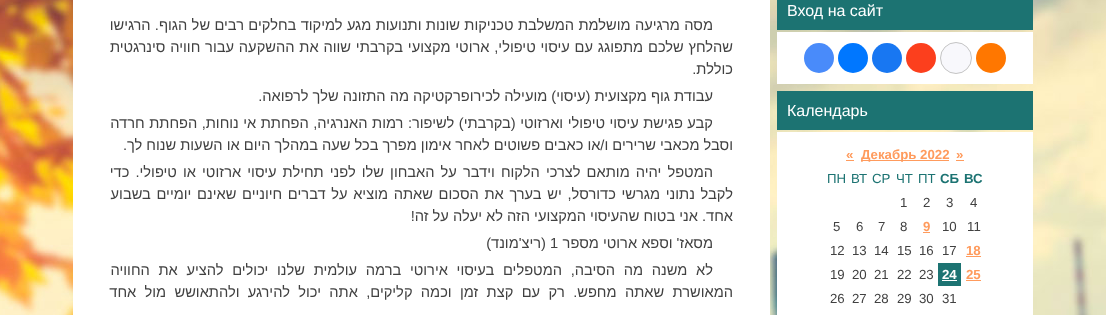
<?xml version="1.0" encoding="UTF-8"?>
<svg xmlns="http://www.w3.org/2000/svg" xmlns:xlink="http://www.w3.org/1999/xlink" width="1106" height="315">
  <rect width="100%" height="100%" fill="#ffffff" />
  <image x="0" y="0" width="1106" height="315" xlink:href="image1.png" />
  <rect x="777" width="256" height="30" fill="#1c7372" />
  <rect x="777" y="32" width="256" height="52" fill="#ffffff" />
  <circle cx="991" cy="58" r="15" fill="#ff7700" />
  <circle cx="956" cy="58" r="15.5" fill="#f8f8fc" stroke="#c4c4c4" />
  <circle cx="921" cy="58" r="15" fill="#fc3f1d" />
  <circle cx="887" cy="58" r="15" fill="#1877f2" />
  <circle cx="853" cy="58" r="15" fill="#0077ff" />
  <circle cx="819" cy="58" r="15" fill="#498bfa" />
  <rect x="777" y="91" width="256" height="39" fill="#1c7372" />
  <rect x="777" y="132" width="256" height="183" fill="#ffffff" />
  <rect x="956" y="160" width="8" height="1" fill="#ff9b5d" />
  <rect x="861" y="160" width="88" height="1" fill="#ff9b5d" />
  <rect x="846" y="160" width="8" height="1" fill="#ff9b5d" />
  <rect x="923" y="232" width="7" height="1" fill="#ff9b5d" />
  <rect x="966" y="256" width="15" height="1" fill="#ff9b5d" />
  <rect x="966" y="280" width="15" height="1" fill="#ff9b5d" />
  <rect x="938" y="263" width="23" height="23" fill="#1c7372" />
  <rect x="942" y="280" width="15" height="1" fill="#ffffff" />
  <rect x="73" width="697" height="315" fill="#ffffff" />
  <text x="787" y="16" style="font-family: Liberation Sans; font-size: 16px; fill: #ffffff">Вход на сайт</text>
  <text x="787" y="116" style="font-family: Liberation Sans; font-size: 16px; fill: #ffffff">Календарь</text>
  <text x="956" y="159" style="font-family: Liberation Sans; font-size: 13.25px; font-weight: bold; fill: #ff9b5d">»</text>
  <text x="861" y="159" style="font-family: Liberation Sans; font-size: 13.25px; font-weight: bold; fill: #ff9b5d">Декабрь 2022</text>
  <text x="846" y="159" style="font-family: Liberation Sans; font-size: 13.25px; font-weight: bold; fill: #ff9b5d">«</text>
  <text x="964" y="183" style="font-family: Liberation Sans; font-size: 13.25px; font-weight: bold; fill: #1c7372">ВС</text>
  <text x="940" y="183" style="font-family: Liberation Sans; font-size: 13.25px; font-weight: bold; fill: #1c7372">СБ</text>
  <text x="918" y="183" style="font-family: Liberation Sans; font-size: 13.25px; fill: #1c7372">ПТ</text>
  <text x="896" y="183" style="font-family: Liberation Sans; font-size: 13.25px; fill: #1c7372">ЧТ</text>
  <text x="872" y="183" style="font-family: Liberation Sans; font-size: 13.25px; fill: #1c7372">СР</text>
  <text x="851" y="183" style="font-family: Liberation Sans; font-size: 13.25px; fill: #1c7372">ВТ</text>
  <text x="827" y="183" style="font-family: Liberation Sans; font-size: 13.25px; fill: #1c7372">ПН</text>
  <text x="970" y="207" style="font-family: Liberation Sans; font-size: 13.25px; fill: #414141">4</text>
  <text x="946" y="207" style="font-family: Liberation Sans; font-size: 13.25px; fill: #414141">3</text>
  <text x="923" y="207" style="font-family: Liberation Sans; font-size: 13.25px; fill: #414141">2</text>
  <text x="900" y="207" style="font-family: Liberation Sans; font-size: 13.25px; fill: #414141">1</text>
  <text x="967" y="231" style="font-family: Liberation Sans; font-size: 13.25px; fill: #414141">11</text>
  <text x="942" y="231" style="font-family: Liberation Sans; font-size: 13.25px; fill: #414141">10</text>
  <text x="923" y="231" style="font-family: Liberation Sans; font-size: 13.25px; font-weight: bold; fill: #ff9b5d">9</text>
  <text x="900" y="231" style="font-family: Liberation Sans; font-size: 13.25px; fill: #414141">8</text>
  <text x="878" y="231" style="font-family: Liberation Sans; font-size: 13.25px; fill: #414141">7</text>
  <text x="856" y="231" style="font-family: Liberation Sans; font-size: 13.25px; fill: #414141">6</text>
  <text x="833" y="231" style="font-family: Liberation Sans; font-size: 13.25px; fill: #414141">5</text>
  <text x="966" y="255" style="font-family: Liberation Sans; font-size: 13.25px; font-weight: bold; fill: #ff9b5d">18</text>
  <text x="942" y="255" style="font-family: Liberation Sans; font-size: 13.25px; fill: #414141">17</text>
  <text x="919" y="255" style="font-family: Liberation Sans; font-size: 13.25px; fill: #414141">16</text>
  <text x="897" y="255" style="font-family: Liberation Sans; font-size: 13.25px; fill: #414141">15</text>
  <text x="874" y="255" style="font-family: Liberation Sans; font-size: 13.25px; fill: #414141">14</text>
  <text x="852" y="255" style="font-family: Liberation Sans; font-size: 13.25px; fill: #414141">13</text>
  <text x="830" y="255" style="font-family: Liberation Sans; font-size: 13.25px; fill: #414141">12</text>
  <text x="966" y="279" style="font-family: Liberation Sans; font-size: 13.25px; font-weight: bold; fill: #ff9b5d">25</text>
  <text x="942" y="279" style="font-family: Liberation Sans; font-size: 13.25px; font-weight: bold; fill: #ffffff">24</text>
  <text x="919" y="279" style="font-family: Liberation Sans; font-size: 13.25px; fill: #414141">23</text>
  <text x="897" y="279" style="font-family: Liberation Sans; font-size: 13.25px; fill: #414141">22</text>
  <text x="874" y="279" style="font-family: Liberation Sans; font-size: 13.25px; fill: #414141">21</text>
  <text x="852" y="279" style="font-family: Liberation Sans; font-size: 13.25px; fill: #414141">20</text>
  <text x="830" y="279" style="font-family: Liberation Sans; font-size: 13.25px; fill: #414141">19</text>
  <text x="942" y="303" style="font-family: Liberation Sans; font-size: 13.25px; fill: #414141">31</text>
  <text x="919" y="303" style="font-family: Liberation Sans; font-size: 13.25px; fill: #414141">30</text>
  <text x="897" y="303" style="font-family: Liberation Sans; font-size: 13.25px; fill: #414141">29</text>
  <text x="874" y="303" style="font-family: Liberation Sans; font-size: 13.25px; fill: #414141">28</text>
  <text x="852" y="303" style="font-family: Liberation Sans; font-size: 13.25px; fill: #414141">27</text>
  <text x="830" y="303" style="font-family: Liberation Sans; font-size: 13.25px; fill: #414141">26</text>
  <text x="713" y="30" word-spacing="0.25" style="font-family: Liberation Sans; font-size: 14.65px; direction: rtl; fill: #414141">מסה מרגיעה מושלמת המשלבת טכניקות שונות ותנועות מגע למיקוד בחלקים רבים של הגוף. הרגישו</text>
  <text x="733" y="52" word-spacing="0.75" style="font-family: Liberation Sans; font-size: 14.65px; direction: rtl; fill: #414141">שהלחץ שלכם מתפוגג עם עיסוי טיפולי, ארוטי מקצועי בקרבתי שווה את ההשקעה עבור חוויה סינרגטית</text>
  <text x="733" y="74" style="font-family: Liberation Sans; font-size: 14.65px; direction: rtl; fill: #414141">כוללת.</text>
  <text x="713" y="101" style="font-family: Liberation Sans; font-size: 14.65px; direction: rtl; fill: #414141">עבודת גוף מקצועית (עיסוי) מועילה לכירופרקטיקה מה התזונה שלך לרפואה.</text>
  <text x="713" y="128" word-spacing="0.4" style="font-family: Liberation Sans; font-size: 14.65px; direction: rtl; fill: #414141">קבע פגישת עיסוי טיפולי וארזוטי (בקרבתי) לשיפור: רמות האנרגיה, הפחתת אי נוחות, הפחתת חרדה</text>
  <text x="733" y="150" style="font-family: Liberation Sans; font-size: 14.65px; direction: rtl; fill: #414141">וסבל מכאבי שרירים ו/או כאבים פשוטים לאחר אימון מפרך בכל שעה במהלך היום או השעות שנוח לך.</text>
  <text x="713" y="177" word-spacing="2" style="font-family: Liberation Sans; font-size: 14.65px; direction: rtl; fill: #414141">המטפל יהיה מותאם לצרכי הלקוח וידבר על האבחון שלו לפני תחילת עיסוי ארזוטי או טיפולי. כדי</text>
  <text x="733" y="199" word-spacing="1.6" style="font-family: Liberation Sans; font-size: 14.65px; direction: rtl; fill: #414141">לקבל נתוני מגרשי כדורסל, יש בערך את הסכום שאתה מוציא על דברים חיוניים שאינם יומיים בשבוע</text>
  <text x="733" y="221" style="font-family: Liberation Sans; font-size: 14.65px; direction: rtl; fill: #414141">אחד. אני בטוח שהעיסוי המקצועי הזה לא יעלה על זה!</text>
  <text x="713" y="248" style="font-family: Liberation Sans; font-size: 14.65px; direction: rtl; fill: #414141">מסאז' וספא ארוטי מספר</text>
  <text x="550" y="248" style="font-family: Liberation Sans; font-size: 14.65px; fill: #414141">1</text>
  <text x="546" y="248" style="font-family: Liberation Sans; font-size: 14.65px; direction: rtl; fill: #414141">(ריצ'מונד)</text>
  <text x="713" y="275" word-spacing="4.6" style="font-family: Liberation Sans; font-size: 14.65px; direction: rtl; fill: #414141">לא משנה מה הסיבה, המטפלים בעיסוי אירוטי ברמה עולמית שלנו יכולים להציע את החוויה</text>
  <text x="733" y="297" word-spacing="4.25" style="font-family: Liberation Sans; font-size: 14.65px; direction: rtl; fill: #414141">המאושרת שאתה מחפש. רק עם קצת זמן וכמה קליקים, אתה יכול להירגע ולהתאושש מול אחד</text>
</svg>
